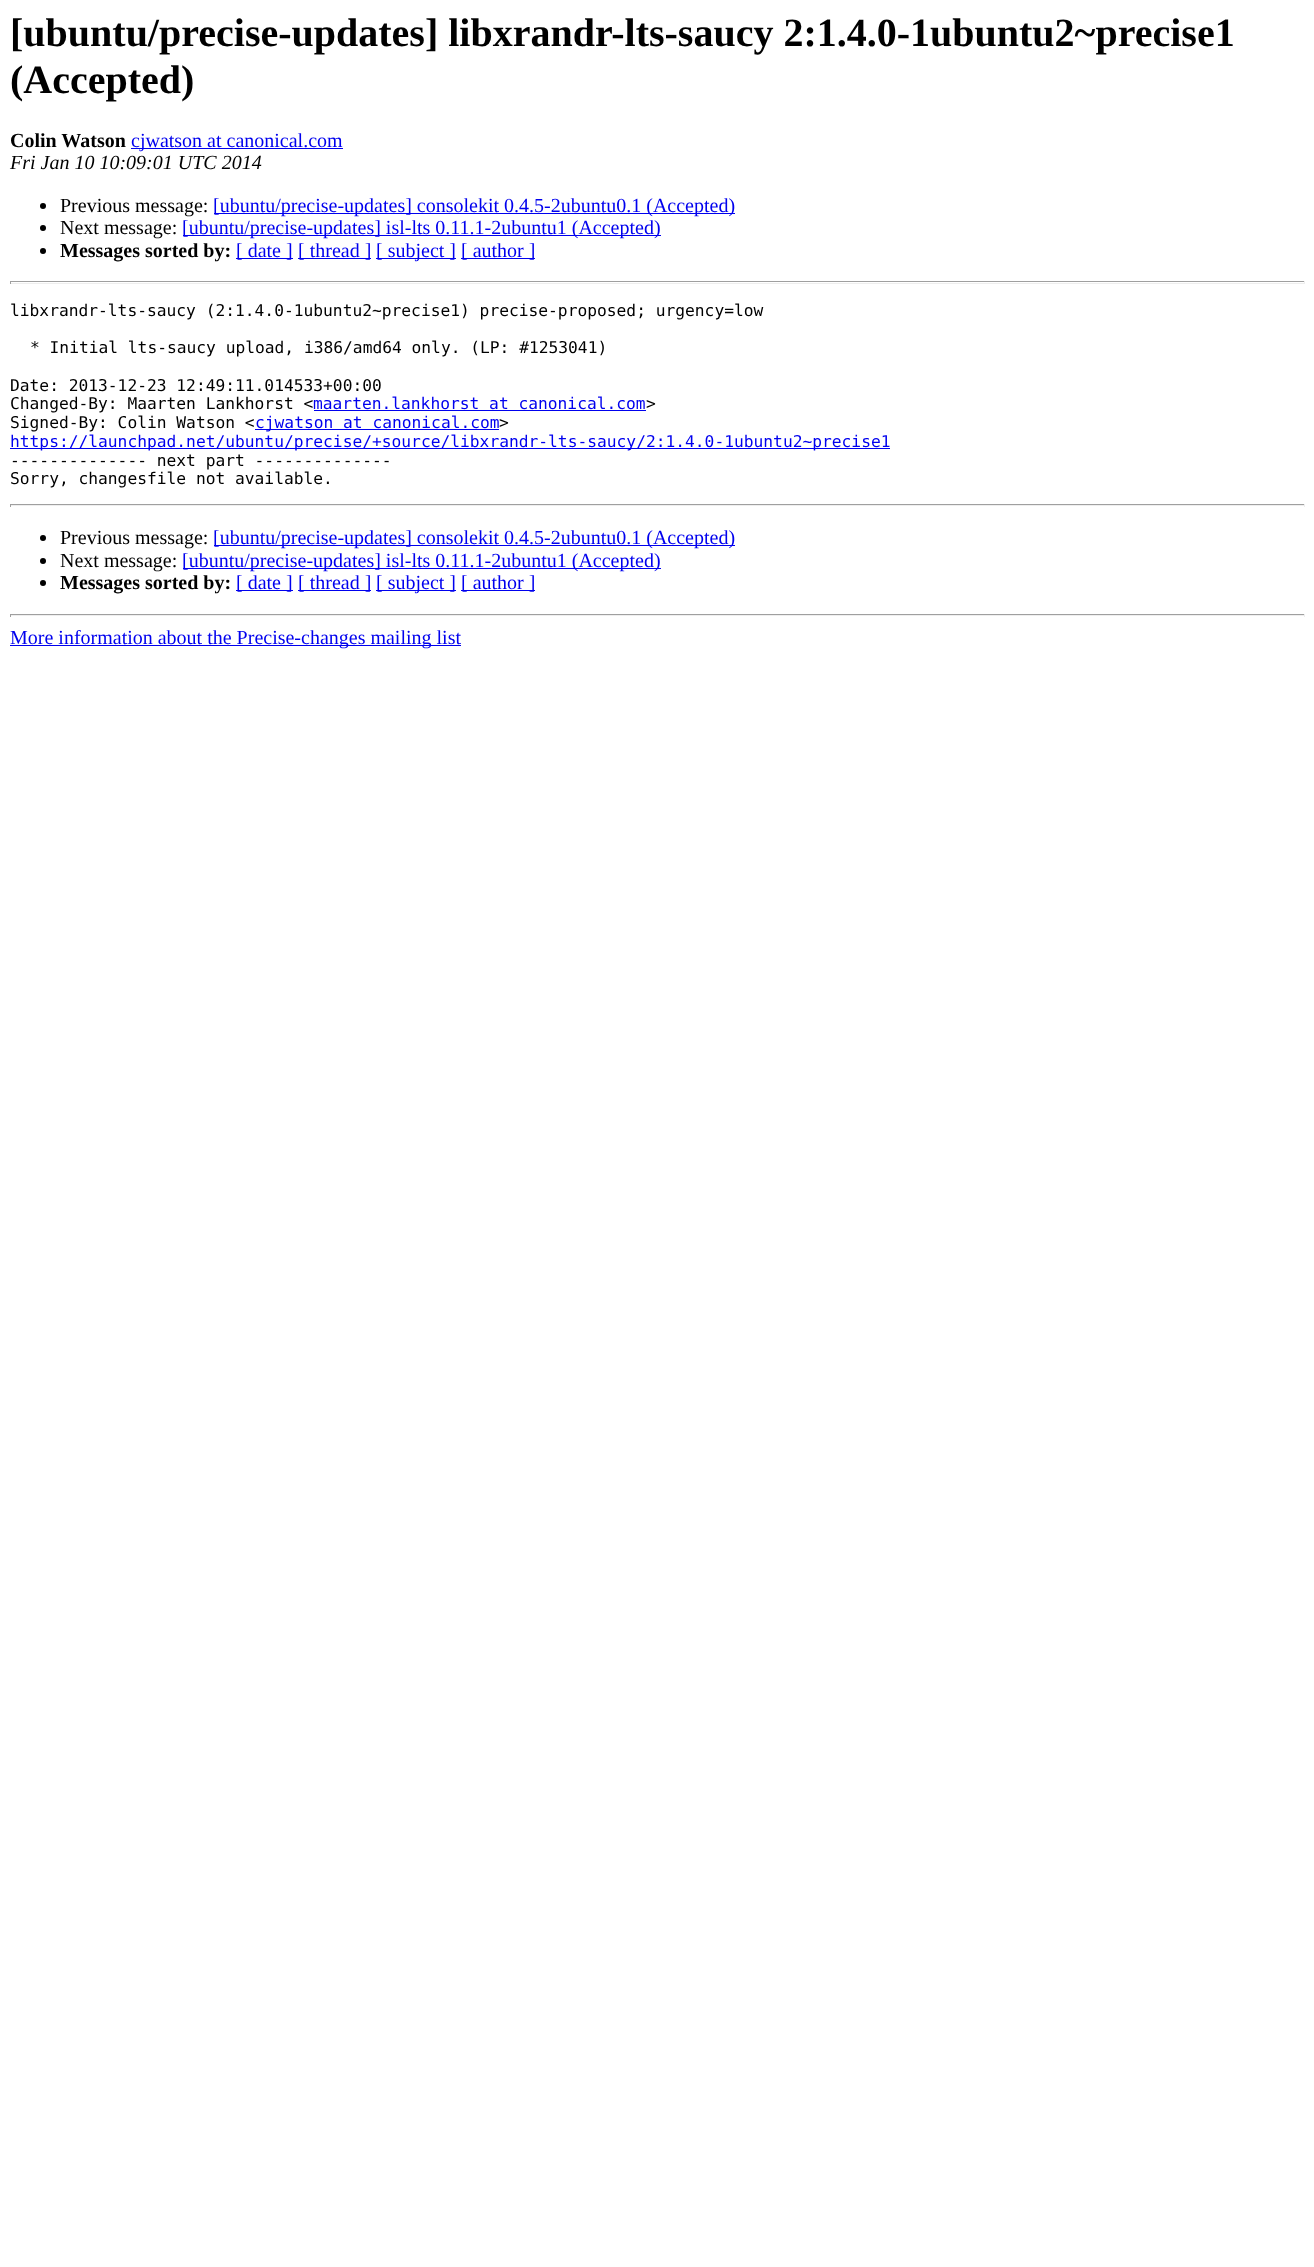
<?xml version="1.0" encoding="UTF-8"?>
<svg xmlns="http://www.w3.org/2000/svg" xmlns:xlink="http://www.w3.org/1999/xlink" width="1314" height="2267">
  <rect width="100%" height="100%" fill="#ffffff" />
  <rect x="131" y="148" width="212" height="1" fill="#0000ee" />
  <circle cx="43" cy="206" r="3" fill="#000000" />
  <rect x="214" y="213" width="521" height="1" fill="#0000ee" />
  <circle cx="43" cy="228" r="3" fill="#000000" />
  <rect x="183" y="235" width="478" height="1" fill="#0000ee" />
  <circle cx="43" cy="251" r="3" fill="#000000" />
  <rect x="236" y="258" width="57" height="1" fill="#0000ee" />
  <rect x="298" y="258" width="73" height="1" fill="#0000ee" />
  <rect x="376" y="258" width="80" height="1" fill="#0000ee" />
  <rect x="461" y="258" width="74" height="1" fill="#0000ee" />
  <rect x="10" y="281" width="1295" height="1" fill="#9f9f9f" />
  <rect x="1304" y="281" width="1" height="3" fill="#eeeeee" />
  <rect x="10" y="283" width="1295" height="1" fill="#eeeeee" />
  <rect x="10" y="281" width="1" height="3" fill="#9f9f9f" />
  <rect x="314" y="410" width="332" height="1" fill="#0000ee" />
  <rect x="255" y="429" width="244" height="1" fill="#0000ee" />
  <rect x="10" y="448" width="880" height="1" fill="#0000ee" />
  <rect x="10" y="504" width="1295" height="1" fill="#9f9f9f" />
  <rect x="1304" y="504" width="1" height="3" fill="#eeeeee" />
  <rect x="10" y="505" width="1295" height="1" fill="#eeeeee" />
  <rect x="10" y="504" width="1" height="3" fill="#9f9f9f" />
  <circle cx="43" cy="538" r="3" fill="#000000" />
  <rect x="214" y="545" width="521" height="1" fill="#0000ee" />
  <circle cx="43" cy="561" r="3" fill="#000000" />
  <rect x="183" y="568" width="478" height="1" fill="#0000ee" />
  <circle cx="43" cy="583" r="3" fill="#000000" />
  <rect x="236" y="590" width="57" height="1" fill="#0000ee" />
  <rect x="298" y="590" width="73" height="1" fill="#0000ee" />
  <rect x="376" y="590" width="80" height="1" fill="#0000ee" />
  <rect x="461" y="590" width="74" height="1" fill="#0000ee" />
  <rect x="10" y="614" width="1295" height="1" fill="#9f9f9f" />
  <rect x="1304" y="614" width="1" height="3" fill="#eeeeee" />
  <rect x="10" y="615" width="1295" height="1" fill="#eeeeee" />
  <rect x="10" y="614" width="1" height="3" fill="#9f9f9f" />
  <rect x="10" y="645" width="451" height="1" fill="#0000ee" />
  <text x="10" y="46" style="font-family: Liberation Serif; font-size: 40px; font-weight: bold; fill: #000000">[ubuntu/precise-updates] libxrandr-lts-saucy 2:1.4.0-1ubuntu2~precise1</text>
  <text x="10" y="93" style="font-family: Liberation Serif; font-size: 40px; font-weight: bold; fill: #000000">(Accepted)</text>
  <text x="10" y="147" style="font-family: Liberation Serif; font-size: 20px; font-weight: bold; fill: #000000">Colin Watson</text>
  <text x="131" y="147" style="font-family: Liberation Serif; font-size: 20px; fill: #0000ee">cjwatson at canonical.com</text>
  <text x="10" y="169" style="font-family: Liberation Serif; font-size: 20px; font-style: italic; fill: #000000">Fri Jan 10 10:09:01 UTC 2014</text>
  <text x="60" y="212" style="font-family: Liberation Serif; font-size: 20px; fill: #000000">Previous message:</text>
  <text x="213" y="212" style="font-family: Liberation Serif; font-size: 20px; fill: #0000ee">[ubuntu/precise-updates] consolekit 0.4.5-2ubuntu0.1 (Accepted)</text>
  <text x="60" y="234" style="font-family: Liberation Serif; font-size: 20px; fill: #000000">Next message:</text>
  <text x="182" y="234" style="font-family: Liberation Serif; font-size: 20px; fill: #0000ee">[ubuntu/precise-updates] isl-lts 0.11.1-2ubuntu1 (Accepted)</text>
  <text x="60" y="257" style="font-family: Liberation Serif; font-size: 20px; font-weight: bold; fill: #000000">Messages sorted by:</text>
  <text x="236" y="257" style="font-family: Liberation Serif; font-size: 20px; fill: #0000ee">[ date ]</text>
  <text x="298" y="257" style="font-family: Liberation Serif; font-size: 20px; fill: #0000ee">[ thread ]</text>
  <text x="376" y="257" style="font-family: Liberation Serif; font-size: 20px; fill: #0000ee">[ subject ]</text>
  <text x="461" y="257" style="font-family: Liberation Serif; font-size: 20px; fill: #0000ee">[ author ]</text>
  <text x="10" y="316" style="font-family: DejaVu Sans Mono; font-size: 16.25px; fill: #000000">libxrandr-lts-saucy (2:1.4.0-1ubuntu2~precise1) precise-proposed; urgency=low</text>
  <text x="30" y="353" style="font-family: DejaVu Sans Mono; font-size: 16.25px; fill: #000000">* Initial lts-saucy upload, i386/amd64 only. (LP: #1253041)</text>
  <text x="10" y="391" style="font-family: DejaVu Sans Mono; font-size: 16.25px; fill: #000000">Date: 2013-12-23 12:49:11.014533+00:00</text>
  <text x="10" y="409" style="font-family: DejaVu Sans Mono; font-size: 16.25px; fill: #000000">Changed-By: Maarten Lankhorst &lt;</text>
  <text x="313" y="409" style="font-family: DejaVu Sans Mono; font-size: 16.25px; fill: #0000ee">maarten.lankhorst at canonical.com</text>
  <text x="646" y="409" style="font-family: DejaVu Sans Mono; font-size: 16.25px; fill: #000000">&gt;</text>
  <text x="10" y="428" style="font-family: DejaVu Sans Mono; font-size: 16.25px; fill: #000000">Signed-By: Colin Watson &lt;</text>
  <text x="255" y="428" style="font-family: DejaVu Sans Mono; font-size: 16.25px; fill: #0000ee">cjwatson at canonical.com</text>
  <text x="499" y="428" style="font-family: DejaVu Sans Mono; font-size: 16.25px; fill: #000000">&gt;</text>
  <text x="10" y="447" style="font-family: DejaVu Sans Mono; font-size: 16.25px; fill: #0000ee">https://launchpad.net/ubuntu/precise/+source/libxrandr-lts-saucy/2:1.4.0-1ubuntu2~precise1</text>
  <text x="10" y="466" style="font-family: DejaVu Sans Mono; font-size: 16.25px; fill: #000000">-------------- next part --------------</text>
  <text x="10" y="484" style="font-family: DejaVu Sans Mono; font-size: 16.25px; fill: #000000">Sorry, changesfile not available.</text>
  <text x="60" y="544" style="font-family: Liberation Serif; font-size: 20px; fill: #000000">Previous message:</text>
  <text x="213" y="544" style="font-family: Liberation Serif; font-size: 20px; fill: #0000ee">[ubuntu/precise-updates] consolekit 0.4.5-2ubuntu0.1 (Accepted)</text>
  <text x="60" y="567" style="font-family: Liberation Serif; font-size: 20px; fill: #000000">Next message:</text>
  <text x="182" y="567" style="font-family: Liberation Serif; font-size: 20px; fill: #0000ee">[ubuntu/precise-updates] isl-lts 0.11.1-2ubuntu1 (Accepted)</text>
  <text x="60" y="589" style="font-family: Liberation Serif; font-size: 20px; font-weight: bold; fill: #000000">Messages sorted by:</text>
  <text x="236" y="589" style="font-family: Liberation Serif; font-size: 20px; fill: #0000ee">[ date ]</text>
  <text x="298" y="589" style="font-family: Liberation Serif; font-size: 20px; fill: #0000ee">[ thread ]</text>
  <text x="376" y="589" style="font-family: Liberation Serif; font-size: 20px; fill: #0000ee">[ subject ]</text>
  <text x="461" y="589" style="font-family: Liberation Serif; font-size: 20px; fill: #0000ee">[ author ]</text>
  <text x="10" y="644" style="font-family: Liberation Serif; font-size: 20px; fill: #0000ee">More information about the Precise-changes mailing list</text>
</svg>
